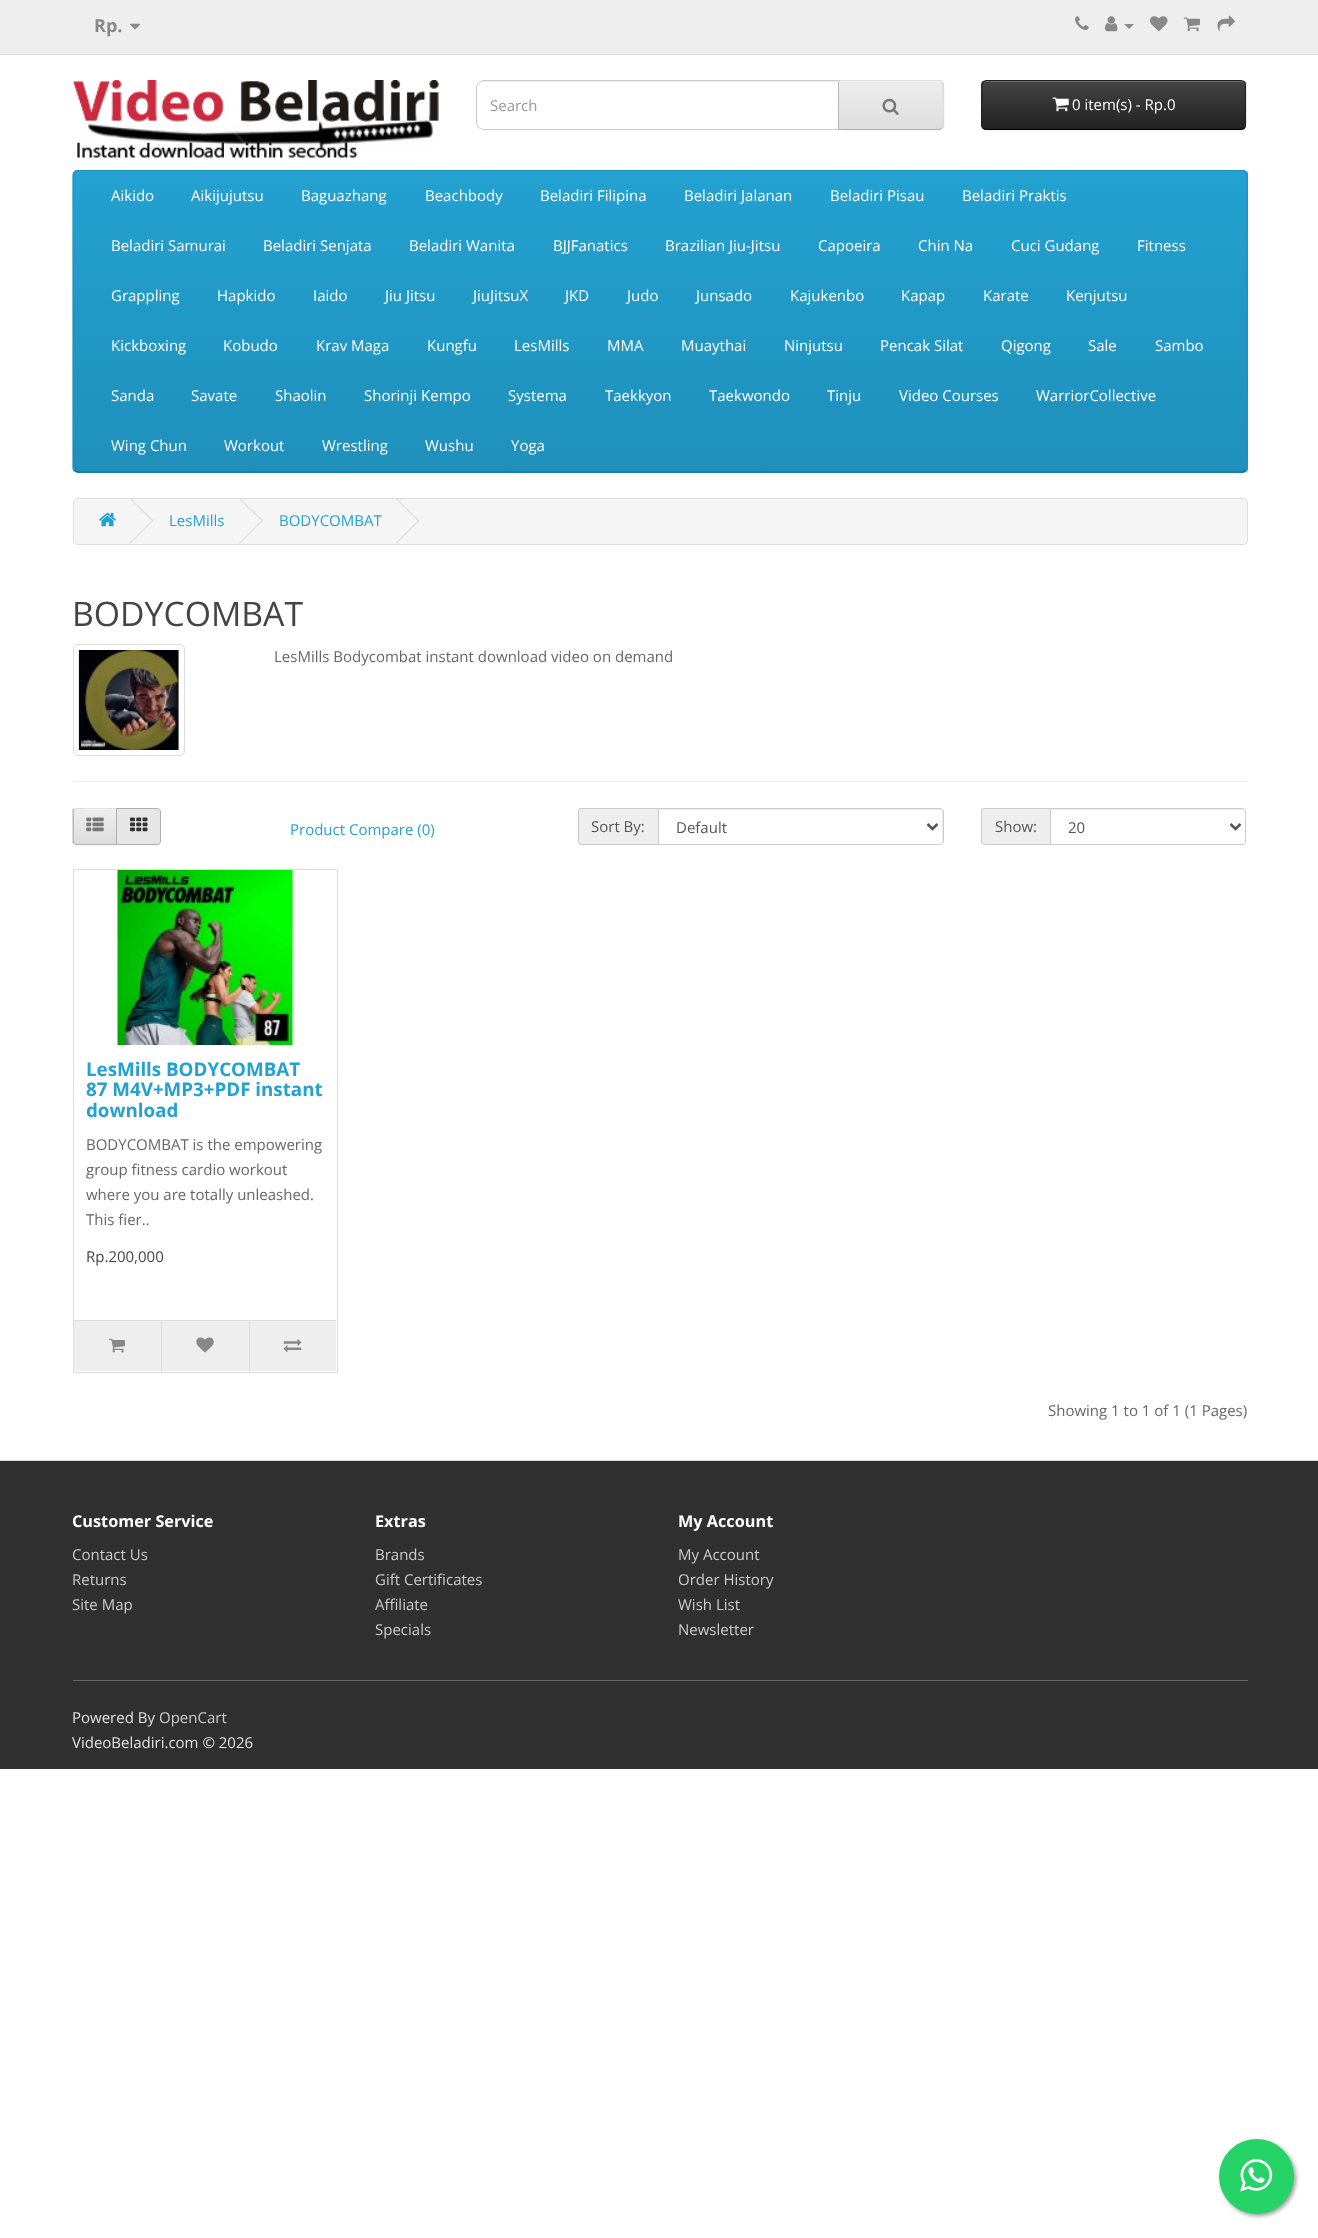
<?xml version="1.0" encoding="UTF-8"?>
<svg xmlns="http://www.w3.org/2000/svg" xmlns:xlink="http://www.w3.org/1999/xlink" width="1318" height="2238">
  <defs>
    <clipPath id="clip1"><path d="M 838 80 h 101 c 3 0 5 2 5 5 v 40 c 0 3 -2 5 -5 5 h -101 z" /></clipPath>
    <linearGradient id="g1" gradientUnits="userSpaceOnUse" x1="891" y1="81" x2="891" y2="129"><stop offset="0" stop-color="#eeeeee" /><stop offset="1" stop-color="#dddddd" /></linearGradient>
    <clipPath id="clip2"><rect x="981" y="80" width="265" height="50" rx="5" /></clipPath>
    <linearGradient id="g2" gradientUnits="userSpaceOnUse" x1="1114" y1="81" x2="1114" y2="129"><stop offset="0" stop-color="#444444" /><stop offset="1" stop-color="#222222" /></linearGradient>
    <clipPath id="clip3"><rect x="73" y="170" width="1175" height="303" rx="5" /></clipPath>
    <linearGradient id="g3" gradientUnits="userSpaceOnUse" x1="660" y1="171" x2="660" y2="471"><stop offset="0" stop-color="#23a1d1" /><stop offset="1" stop-color="#1f90bb" /></linearGradient>
    <clipPath id="clip4"><path d="M 77 808 h 41 v 37 h -41 c -2 0 -4 -2 -4 -4 v -29 c 0 -2 2 -4 4 -4 z" /></clipPath>
    <linearGradient id="g4" gradientUnits="userSpaceOnUse" x1="95" y1="809" x2="95" y2="844"><stop offset="0" stop-color="#eeeeee" /><stop offset="1" stop-color="#dddddd" /></linearGradient>
  </defs>
  <rect width="100%" height="100%" fill="#ffffff" />
  <rect width="1318" height="54" fill="#eeeeee" />
  <rect y="54" width="1318" height="1" fill="#e2e2e2" />
  <image x="130" y="23" width="10" height="7" xlink:href="image1.png" />
  <image x="1075" y="16" width="14" height="14" xlink:href="image2.png" />
  <image x="1105" y="16" width="13" height="16" xlink:href="image3.png" />
  <path d="M 1124 24 h 10 l -5 5 z" fill="#888888" />
  <image x="1150" y="16" width="18" height="16" xlink:href="image4.png" />
  <image x="1183" y="17" width="17" height="15" xlink:href="image5.png" />
  <image x="1217" y="15" width="18" height="17" xlink:href="image6.png" />
  <image x="72" y="80" width="367" height="78" xlink:href="image7.png" />
  <path d="M 484 82 h 354 v -1 h -354 c -3 0 -6 3 -6 6 v 2 c 0 -4 2 -7 6 -7 z" fill="#ececec" />
  <path d="M 484 80.5 h 354.5 v 49 h -354.5 c -4 0 -7.5 -3.5 -7.5 -7.5 v -34 c 0 -4 3.5 -7.5 7.5 -7.5 z" fill="none" stroke="#cccccc" />
  <rect x="838" y="81" width="106" height="50" rx="5" fill="#000000" fill-opacity="0.05" filter="blur(1px)" />
  <g clip-path="url(#clip1)">
    <rect x="838" y="81" width="106" height="48" fill="url(#g1)" />
  </g>
  <path d="M 839 82 h 100 c 5 0 3 9 3 11 v 35 c 0 -1 1 -2 1 -3 v -40 c 0 -2 -2 -4 -4 -4 h -100 z" fill="#ffffff" fill-opacity="0.2" />
  <path d="M 838 80 l 1 2 v -1 h 100 l 2 1 l 1 -1 c 0 -1 -2 -1 -3 -1 z" fill="#dddddd" />
  <path d="M 944 127 l -2 2 l -1 -1 c 2 -3 2 -43 0 -46 l 1 -1 l 2 2 z" fill="#dddddd" />
  <path d="M 838 130 h 102 l 2 -1 l -1 -1 l -2 1 h -100 v -1 z" fill="#b3b3b3" />
  <path d="M 838 80 v 50 l 1 -2 v -46 z" fill="#b7b7b7" />
  <image x="882" y="98" width="17" height="17" xlink:href="image8.png" />
  <rect x="981" y="81" width="265" height="50" rx="5" fill="#000000" fill-opacity="0.05" filter="blur(1px)" />
  <g clip-path="url(#clip2)">
    <rect x="981" y="81" width="265" height="48" fill="url(#g2)" />
  </g>
  <path d="M 986 82 h 255 c 2 0 4 2 4 4 v -1 c 0 -2 -2 -4 -4 -4 h -254 c -1 0 -3 1 -3 2 z" fill="#696969" />
  <path d="M 1244.5 128 c -1 1 -2 1.5 -3.5 1.5 h -255 c -1 0 -2 -0.5 -3 -1.5" fill="none" stroke="#000000" stroke-width="1.2" />
  <path d="M 983 128 c -0.5 -0.5 -1 -2 -1 -3 v -40 c 0 -1 0.5 -2.5 1 -3 c 1 -1 2 -1.5 3 -1.5 h 255 c 1.5 0 2.5 0.5 3.5 1.5 c 0.5 0.5 1 2 1 3 v 40 c 0 1 -0.5 2.5 -1 3" fill="none" stroke="#222222" stroke-width="1.2" />
  <image x="1052" y="97" width="17" height="15" xlink:href="image9.png" />
  <rect x="73" y="170" width="1175" height="303" rx="5" fill="#229ac8" />
  <g clip-path="url(#clip3)">
    <rect x="73" y="171" width="1175" height="300" fill="url(#g3)" />
  </g>
  <path d="M 1245.5 470.5 l -3 1.5 h -1165 l -3 -1.5" fill="none" stroke="#145e7a" stroke-width="1.2" />
  <path d="M 74.5 470.5 c -1 -0.5 -1.5 -2 -1.5 -3 v -292.5 c 0 -1 0.5 -2.5 1.5 -3 c 0.5 -1 2 -1.5 3 -1.5 h 1165 c 1 0 2.5 0.5 3 1.5 c 1 0.5 1.5 2 1.5 3 v 292.5 c 0 1 -0.5 2.5 -1.5 3" fill="none" stroke="#1f90bb" stroke-width="1.2" />
  <rect x="73.5" y="498.5" width="1174" height="46" rx="4.5" fill="#f5f5f5" stroke="#dddddd" />
  <image x="99" y="512" width="17" height="15" xlink:href="image10.png" />
  <path d="M 129.5 498.5 l 1 -0.5 l 23 22.5 l -1 1 z" fill="#dddddd" />
  <path d="M 129.5 543 l 23 -23 l 1 0.5 l -23 23 z" fill="#dddddd" />
  <path d="M 239 498.5 l 1 -0.5 l 23 22.5 l -1 1 z" fill="#dddddd" />
  <path d="M 239 543 l 23 -23 l 1 0.5 l -23 23 z" fill="#dddddd" />
  <path d="M 395.5 498.5 l 1 -0.5 l 23 22.5 l -1 1 z" fill="#dddddd" />
  <path d="M 395.5 543 l 23 -23 l 1 0.5 l -23 23 z" fill="#dddddd" />
  <rect x="73.5" y="644.5" width="111" height="111" rx="4.5" fill="none" stroke="#dddddd" />
  <image x="78" y="650" width="101" height="100" xlink:href="image11.png" />
  <rect x="73" y="781" width="1175" height="1" fill="#eeeeee" />
  <rect x="73" y="809" width="45" height="37" rx="4" fill="#000000" fill-opacity="0.05" filter="blur(1px)" />
  <g clip-path="url(#clip4)">
    <rect x="73" y="809" width="43" height="35" fill="url(#g4)" />
  </g>
  <path d="M 76 810 h 40 v -1 h -40 c -1 0 -2 1 -2 3 c 0 -1 1 -2 2 -2 z" fill="#f1f1f1" />
  <path d="M 76 808 l -2 1 l 1 1 c 1 -2 36 -1 41 -1 l 1 -1 z" fill="#dddddd" />
  <path d="M 118 845 l -2 -1 h -40 l -2 -1 v 1 l 2 1 z" fill="#b3b3b3" />
  <path d="M 72.5 809.5 l 1 -1 l 1 1 l -0.5 1.5 v 25 c 0 1 -0.5 5.5 0.5 7 l -1 1 l -1 -1 z" fill="#b7b7b7" />
  <image x="86" y="817" width="18" height="15" xlink:href="image12.png" />
  <path d="M 116.5 808.5 h 40.5 c 2 0 3.5 1.5 3.5 3.5 v 29 c 0 2 -1.5 3.5 -3.5 3.5 h -40.5 z" fill="#e6e6e6" stroke="#adadad" />
  <image x="130" y="817" width="18" height="15" xlink:href="image13.png" />
  <path d="M 582 808 h 76 v 37 h -76 c -2 0 -4 -2 -4 -4 v -29 c 0 -2 2 -4 4 -4 z" fill="#eeeeee" />
  <path d="M 581 808 h 77 v 37 h -77 c -2 0 -3 -2 -3 -4 v -30 c 0 -2 1 -3 3 -3 z m 0 1 h 77 v 35 h -77 c -1 0 -2 -1 -2 -3 v -30 c 0 -1 1 -2 2 -2 z" fill="#cccccc" fill-rule="evenodd" />
  <path d="M 659 810 h 281 c 1 0 2 1 2 2 v 32 l 1 -2 v -31 l -2 -2 h -282 z" fill="#ececec" />
  <path d="M 658.5 808.5 h 281.5 c 2 0 3.5 1.5 3.5 3.5 v 29 c 0 2 -1.5 3.5 -3.5 3.5 h -281.5 z" fill="none" stroke="#cccccc" />
  <path d="M 927.5 824 l 5 5 l 5 -5" fill="none" stroke="#555555" stroke-width="2.5" />
  <path d="M 985 808 h 65 v 37 h -65 c -2 0 -4 -2 -4 -4 v -29 c 0 -2 2 -4 4 -4 z" fill="#eeeeee" />
  <path d="M 985 808 h 65 v 37 h -65 c -2 0 -4 -2 -4 -4 v -30 c 0 -2 2 -3 4 -3 z m 0 1 h 65 v 35 h -65 c -1 0 -3 -1 -3 -3 v -30 c 0 -1 2 -2 3 -2 z" fill="#cccccc" fill-rule="evenodd" />
  <path d="M 1051 810 h 191 c 2 0 3 1 3 2 c 0 -2 -1 -3 -3 -3 h -191 z" fill="#ececec" />
  <path d="M 1050.5 808.5 h 191.5 c 2 0 3.5 1.5 3.5 3.5 v 29 c 0 2 -1.5 3.5 -3.5 3.5 h -191.5 z" fill="none" stroke="#cccccc" />
  <path d="M 1230.5 824 l 5 5 l 5 -5" fill="none" stroke="#555555" stroke-width="2.5" />
  <rect x="73.5" y="869.5" width="264" height="503" fill="none" stroke="#dddddd" />
  <image x="117" y="870" width="176" height="175" xlink:href="image14.png" />
  <rect x="74" y="1321" width="262" height="50" fill="#eeeeee" />
  <rect x="74" y="1320" width="262" height="1" fill="#dddddd" />
  <image x="108" y="1338" width="17" height="15" xlink:href="image15.png" />
  <rect x="161" y="1321" width="1" height="50" fill="#dddddd" />
  <image x="196" y="1337" width="18" height="16" xlink:href="image16.png" />
  <rect x="249" y="1321" width="1" height="50" fill="#dddddd" />
  <image x="283" y="1339" width="19" height="14" xlink:href="image17.png" />
  <rect y="1461" width="1318" height="308" fill="#303030" />
  <rect y="1460" width="1318" height="1" fill="#dddddd" />
  <rect x="73" y="1680" width="1175" height="1" fill="#666666" />
  <rect x="1221" y="2141" width="75" height="75" rx="37.5" fill="#999999" filter="blur(2px)" />
  <circle cx="1256.5" cy="2176.5" r="37.5" fill="#25d366" />
  <image x="1240" y="2159" width="33" height="33" xlink:href="image18.png" />
  <text x="94" y="32" style="font-family: Open Sans; font-size: 18px; font-weight: bold; fill: #888888">Rp.</text>
  <text x="490" y="111" style="font-family: Open Sans; font-size: 15px; fill: #999999">Search</text>
  <text x="1072" y="110" style="font-family: Open Sans; font-size: 15px; fill: #ffffff">0 item(s) - Rp.0</text>
  <text x="111" y="201" style="font-family: Open Sans; font-size: 15px; fill: #ffffff">Aikido</text>
  <text x="191" y="201" style="font-family: Open Sans; font-size: 15px; fill: #ffffff">Aikijujutsu</text>
  <text x="301" y="201" style="font-family: Open Sans; font-size: 15px; fill: #ffffff">Baguazhang</text>
  <text x="425" y="201" style="font-family: Open Sans; font-size: 15px; fill: #ffffff">Beachbody</text>
  <text x="540" y="201" style="font-family: Open Sans; font-size: 15px; fill: #ffffff">Beladiri Filipina</text>
  <text x="684" y="201" style="font-family: Open Sans; font-size: 15px; fill: #ffffff">Beladiri Jalanan</text>
  <text x="830" y="201" style="font-family: Open Sans; font-size: 15px; fill: #ffffff">Beladiri Pisau</text>
  <text x="962" y="201" style="font-family: Open Sans; font-size: 15px; fill: #ffffff">Beladiri Praktis</text>
  <text x="111" y="251" style="font-family: Open Sans; font-size: 15px; fill: #ffffff">Beladiri Samurai</text>
  <text x="263" y="251" style="font-family: Open Sans; font-size: 15px; fill: #ffffff">Beladiri Senjata</text>
  <text x="409" y="251" style="font-family: Open Sans; font-size: 15px; fill: #ffffff">Beladiri Wanita</text>
  <text x="553" y="251" style="font-family: Open Sans; font-size: 15px; fill: #ffffff">BJJFanatics</text>
  <text x="665" y="251" style="font-family: Open Sans; font-size: 15px; fill: #ffffff">Brazilian Jiu-Jitsu</text>
  <text x="818" y="251" style="font-family: Open Sans; font-size: 15px; fill: #ffffff">Capoeira</text>
  <text x="918" y="251" style="font-family: Open Sans; font-size: 15px; fill: #ffffff">Chin Na</text>
  <text x="1011" y="251" style="font-family: Open Sans; font-size: 15px; fill: #ffffff">Cuci Gudang</text>
  <text x="1137" y="251" style="font-family: Open Sans; font-size: 15px; fill: #ffffff">Fitness</text>
  <text x="111" y="301" style="font-family: Open Sans; font-size: 15px; fill: #ffffff">Grappling</text>
  <text x="217" y="301" style="font-family: Open Sans; font-size: 15px; fill: #ffffff">Hapkido</text>
  <text x="313" y="301" style="font-family: Open Sans; font-size: 15px; fill: #ffffff">Iaido</text>
  <text x="385" y="301" style="font-family: Open Sans; font-size: 15px; fill: #ffffff">Jiu Jitsu</text>
  <text x="473" y="301" style="font-family: Open Sans; font-size: 15px; fill: #ffffff">JiuJitsuX</text>
  <text x="565" y="301" style="font-family: Open Sans; font-size: 15px; fill: #ffffff">JKD</text>
  <text x="627" y="301" style="font-family: Open Sans; font-size: 15px; fill: #ffffff">Judo</text>
  <text x="696" y="301" style="font-family: Open Sans; font-size: 15px; fill: #ffffff">Junsado</text>
  <text x="790" y="301" style="font-family: Open Sans; font-size: 15px; fill: #ffffff">Kajukenbo</text>
  <text x="901" y="301" style="font-family: Open Sans; font-size: 15px; fill: #ffffff">Kapap</text>
  <text x="983" y="301" style="font-family: Open Sans; font-size: 15px; fill: #ffffff">Karate</text>
  <text x="1066" y="301" style="font-family: Open Sans; font-size: 15px; fill: #ffffff">Kenjutsu</text>
  <text x="111" y="351" style="font-family: Open Sans; font-size: 15px; fill: #ffffff">Kickboxing</text>
  <text x="223" y="351" style="font-family: Open Sans; font-size: 15px; fill: #ffffff">Kobudo</text>
  <text x="316" y="351" style="font-family: Open Sans; font-size: 15px; fill: #ffffff">Krav Maga</text>
  <text x="427" y="351" style="font-family: Open Sans; font-size: 15px; fill: #ffffff">Kungfu</text>
  <text x="514" y="351" style="font-family: Open Sans; font-size: 15px; fill: #ffffff">LesMills</text>
  <text x="607" y="351" style="font-family: Open Sans; font-size: 15px; fill: #ffffff">MMA</text>
  <text x="681" y="351" style="font-family: Open Sans; font-size: 15px; fill: #ffffff">Muaythai</text>
  <text x="784" y="351" style="font-family: Open Sans; font-size: 15px; fill: #ffffff">Ninjutsu</text>
  <text x="880" y="351" style="font-family: Open Sans; font-size: 15px; fill: #ffffff">Pencak Silat</text>
  <text x="1001" y="351" style="font-family: Open Sans; font-size: 15px; fill: #ffffff">Qigong</text>
  <text x="1088" y="351" style="font-family: Open Sans; font-size: 15px; fill: #ffffff">Sale</text>
  <text x="1155" y="351" style="font-family: Open Sans; font-size: 15px; fill: #ffffff">Sambo</text>
  <text x="111" y="401" style="font-family: Open Sans; font-size: 15px; fill: #ffffff">Sanda</text>
  <text x="191" y="401" style="font-family: Open Sans; font-size: 15px; fill: #ffffff">Savate</text>
  <text x="275" y="401" style="font-family: Open Sans; font-size: 15px; fill: #ffffff">Shaolin</text>
  <text x="364" y="401" style="font-family: Open Sans; font-size: 15px; fill: #ffffff">Shorinji Kempo</text>
  <text x="508" y="401" style="font-family: Open Sans; font-size: 15px; fill: #ffffff">Systema</text>
  <text x="605" y="401" style="font-family: Open Sans; font-size: 15px; fill: #ffffff">Taekkyon</text>
  <text x="709" y="401" style="font-family: Open Sans; font-size: 15px; fill: #ffffff">Taekwondo</text>
  <text x="827" y="401" style="font-family: Open Sans; font-size: 15px; fill: #ffffff">Tinju</text>
  <text x="899" y="401" style="font-family: Open Sans; font-size: 15px; fill: #ffffff">Video Courses</text>
  <text x="1036" y="401" style="font-family: Open Sans; font-size: 15px; fill: #ffffff">WarriorCollective</text>
  <text x="111" y="451" style="font-family: Open Sans; font-size: 15px; fill: #ffffff">Wing Chun</text>
  <text x="224" y="451" style="font-family: Open Sans; font-size: 15px; fill: #ffffff">Workout</text>
  <text x="322" y="451" style="font-family: Open Sans; font-size: 15px; fill: #ffffff">Wrestling</text>
  <text x="425" y="451" style="font-family: Open Sans; font-size: 15px; fill: #ffffff">Wushu</text>
  <text x="511" y="451" style="font-family: Open Sans; font-size: 15px; fill: #ffffff">Yoga</text>
  <text x="169" y="526" style="font-family: Open Sans; font-size: 15px; fill: #23a1d1">LesMills</text>
  <text x="279" y="526" style="font-family: Open Sans; font-size: 15px; fill: #23a1d1">BODYCOMBAT</text>
  <text x="72" y="626" style="font-family: Open Sans; font-size: 33.75px; fill: #444444">BODYCOMBAT</text>
  <text x="274" y="662" style="font-family: Open Sans; font-size: 15px; fill: #666666">LesMills Bodycombat instant download video on demand</text>
  <text x="290" y="835" style="font-family: Open Sans; font-size: 15px; fill: #23a1d1">Product Compare (0)</text>
  <text x="591" y="832" style="font-family: Open Sans; font-size: 15px; fill: #555555">Sort By:</text>
  <text x="676" y="833" style="font-family: Open Sans; font-size: 15px; fill: #555555">Default</text>
  <text x="995" y="832" style="font-family: Open Sans; font-size: 15px; fill: #555555">Show:</text>
  <text x="1068" y="833" style="font-family: Open Sans; font-size: 15px; fill: #555555">20</text>
  <text x="86" y="1076" style="font-family: Open Sans; font-size: 18.75px; font-weight: bold; fill: #23a1d1">LesMills BODYCOMBAT</text>
  <text x="86" y="1096" style="font-family: Open Sans; font-size: 18.75px; font-weight: bold; fill: #23a1d1">87 M4V+MP3+PDF instant</text>
  <text x="86" y="1117" style="font-family: Open Sans; font-size: 18.75px; font-weight: bold; fill: #23a1d1">download</text>
  <text x="86" y="1150" style="font-family: Open Sans; font-size: 15px; fill: #666666">BODYCOMBAT is the empowering</text>
  <text x="86" y="1175" style="font-family: Open Sans; font-size: 15px; fill: #666666">group fitness cardio workout</text>
  <text x="86" y="1200" style="font-family: Open Sans; font-size: 15px; fill: #666666">where you are totally unleashed.</text>
  <text x="86" y="1225" style="font-family: Open Sans; font-size: 15px; fill: #666666">This fier..</text>
  <text x="86" y="1262" style="font-family: Open Sans; font-size: 15px; fill: #444444">Rp.200,000</text>
  <text x="1048" y="1416" style="font-family: Open Sans; font-size: 15px; fill: #666666">Showing 1 to 1 of 1 (1 Pages)</text>
  <text x="72" y="1527" style="font-family: Open Sans; font-size: 16.25px; font-weight: bold; fill: #ffffff">Customer Service</text>
  <text x="72" y="1560" style="font-family: Open Sans; font-size: 15px; fill: #cccccc">Contact Us</text>
  <text x="72" y="1585" style="font-family: Open Sans; font-size: 15px; fill: #cccccc">Returns</text>
  <text x="72" y="1610" style="font-family: Open Sans; font-size: 15px; fill: #cccccc">Site Map</text>
  <text x="375" y="1527" style="font-family: Open Sans; font-size: 16.25px; font-weight: bold; fill: #ffffff">Extras</text>
  <text x="375" y="1560" style="font-family: Open Sans; font-size: 15px; fill: #cccccc">Brands</text>
  <text x="375" y="1585" style="font-family: Open Sans; font-size: 15px; fill: #cccccc">Gift Certificates</text>
  <text x="375" y="1610" style="font-family: Open Sans; font-size: 15px; fill: #cccccc">Affiliate</text>
  <text x="375" y="1635" style="font-family: Open Sans; font-size: 15px; fill: #cccccc">Specials</text>
  <text x="678" y="1527" style="font-family: Open Sans; font-size: 16.25px; font-weight: bold; fill: #ffffff">My Account</text>
  <text x="678" y="1560" style="font-family: Open Sans; font-size: 15px; fill: #cccccc">My Account</text>
  <text x="678" y="1585" style="font-family: Open Sans; font-size: 15px; fill: #cccccc">Order History</text>
  <text x="678" y="1610" style="font-family: Open Sans; font-size: 15px; fill: #cccccc">Wish List</text>
  <text x="678" y="1635" style="font-family: Open Sans; font-size: 15px; fill: #cccccc">Newsletter</text>
  <text x="72" y="1723" style="font-family: Open Sans; font-size: 15px; fill: #e2e2e2">Powered By</text>
  <text x="159" y="1723" style="font-family: Open Sans; font-size: 15px; fill: #cccccc">OpenCart</text>
  <text x="72" y="1748" style="font-family: Open Sans; font-size: 15px; fill: #e2e2e2">VideoBeladiri.com © 2026</text>
</svg>
